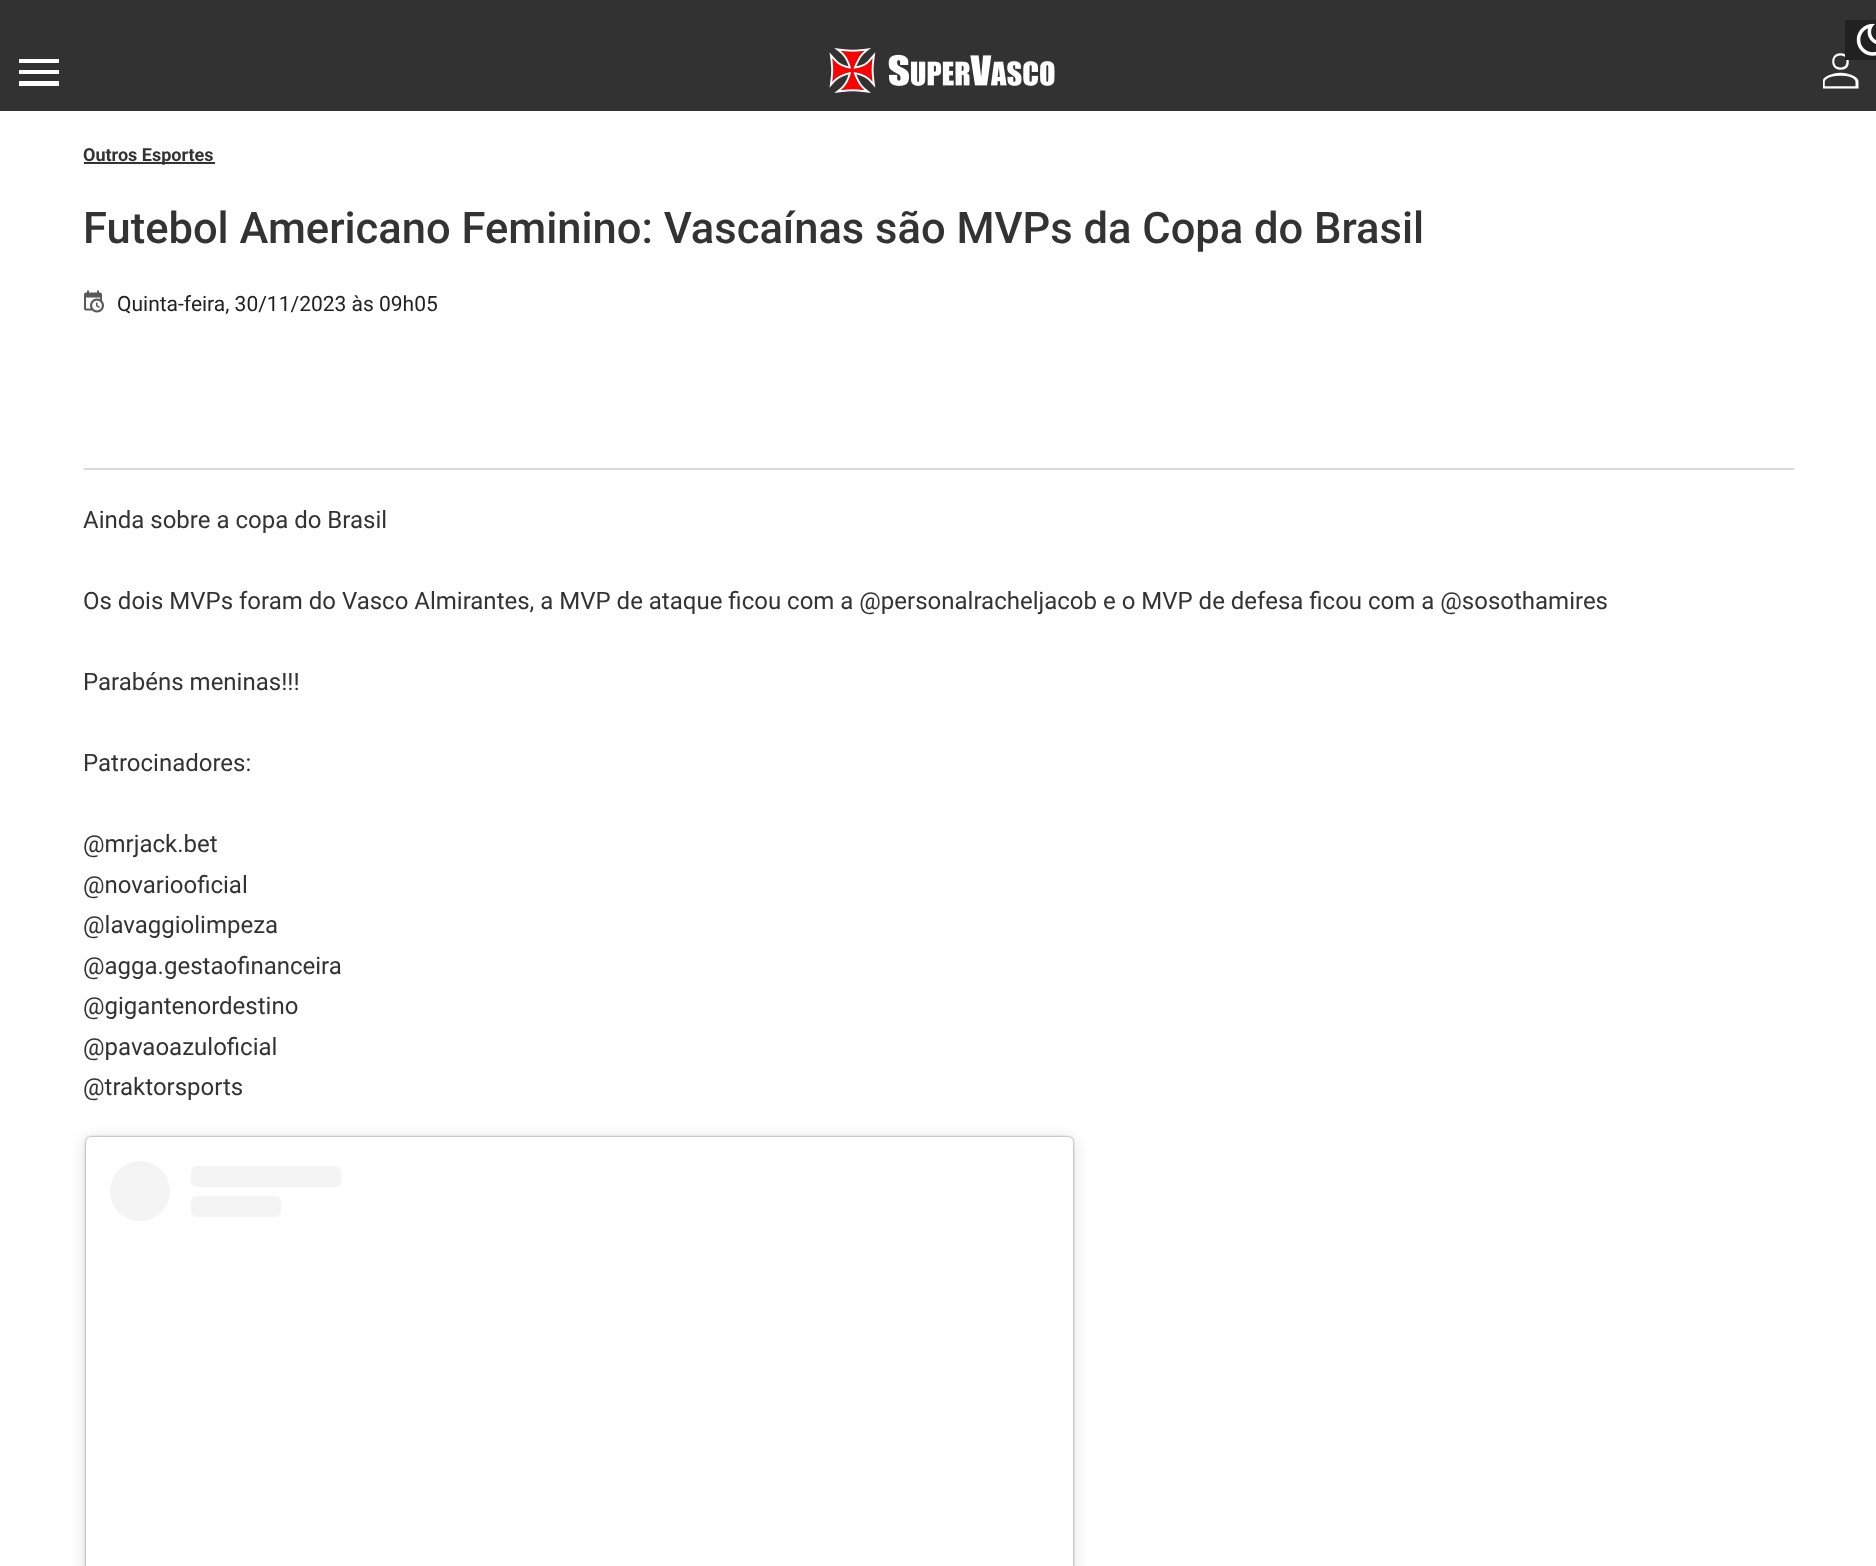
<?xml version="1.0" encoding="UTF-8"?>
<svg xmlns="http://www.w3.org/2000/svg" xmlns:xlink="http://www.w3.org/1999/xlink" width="1876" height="1566">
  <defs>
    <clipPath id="clip1"><rect x="18" y="59" width="42" height="27" /></clipPath>
  </defs>
  <rect width="100%" height="100%" fill="#ffffff" />
  <rect width="1876" height="111" fill="#323232" />
  <g clip-path="url(#clip1)">
    <path d="M 19 58 h 40 v 5 h -40 z m 0 12 h 40 v 4 h -40 z m 0 11 h 40 v 5 h -40 z" fill="#ffffff" />
  </g>
  <image x="829" y="48" width="226" height="45" xlink:href="image1.png" />
  <image x="1823" y="53" width="36" height="36" xlink:href="image3.png" />
  <rect x="1845" y="20" width="31" height="40" fill="#212121" />
  <image x="1856" y="23" width="20" height="33" xlink:href="image2.png" />
  <rect x="84" y="162" width="131" height="2" fill="#333333" />
  <rect x="84" y="468" width="1710" height="2" fill="#d9d9d9" />
  <image x="84" y="290" width="20" height="23" xlink:href="image4.png" />
  <rect x="86" y="1139" width="987" height="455" rx="5" fill="#000000" fill-opacity="0.15" filter="blur(7.5px)" />
  <rect x="86" y="1137" width="987" height="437" rx="5" fill="#000000" fill-opacity="0.5" filter="blur(1px)" />
  <rect x="86" y="1137" width="987" height="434" rx="5" fill="#ffffff" />
  <circle cx="140" cy="1191" r="30" fill="#f4f4f4" />
  <rect x="191" y="1166" width="150" height="21" rx="6" fill="#f4f4f4" />
  <rect x="191" y="1196" width="90" height="21" rx="6" fill="#f4f4f4" />
  <text x="83" y="161" style="font-family: Roboto; font-size: 18px; font-weight: bold; fill: #333333">Outros Esportes</text>
  <text x="83" y="243" style="font-family: Roboto; font-size: 43.5px; font-weight: 500; fill: #333333">Futebol Americano Feminino: Vascaínas são MVPs da Copa do Brasil</text>
  <text x="117" y="311" style="font-family: Roboto; font-size: 21px; fill: #212121">Quinta-feira, 30/11/2023 às 09h05</text>
  <text x="83" y="528" style="font-family: Roboto; font-size: 24px; fill: #333333">Ainda sobre a copa do Brasil</text>
  <text x="83" y="609" style="font-family: Roboto; font-size: 24px; fill: #333333">Os dois MVPs foram do Vasco Almirantes, a MVP de ataque ficou com a @personalracheljacob e o MVP de defesa ficou com a @sosothamires</text>
  <text x="83" y="690" style="font-family: Roboto; font-size: 24px; fill: #333333">Parabéns meninas!!!</text>
  <text x="83" y="771" style="font-family: Roboto; font-size: 24px; fill: #333333">Patrocinadores:</text>
  <text x="83" y="852" style="font-family: Roboto; font-size: 24px; fill: #333333">@mrjack.bet</text>
  <text x="83" y="893" style="font-family: Roboto; font-size: 24px; fill: #333333">@novariooficial</text>
  <text x="83" y="933" style="font-family: Roboto; font-size: 24px; fill: #333333">@lavaggiolimpeza</text>
  <text x="83" y="974" style="font-family: Roboto; font-size: 24px; fill: #333333">@agga.gestaofinanceira</text>
  <text x="83" y="1014" style="font-family: Roboto; font-size: 24px; fill: #333333">@gigantenordestino</text>
  <text x="83" y="1055" style="font-family: Roboto; font-size: 24px; fill: #333333">@pavaoazuloficial</text>
  <text x="83" y="1095" style="font-family: Roboto; font-size: 24px; fill: #333333">@traktorsports</text>
</svg>
